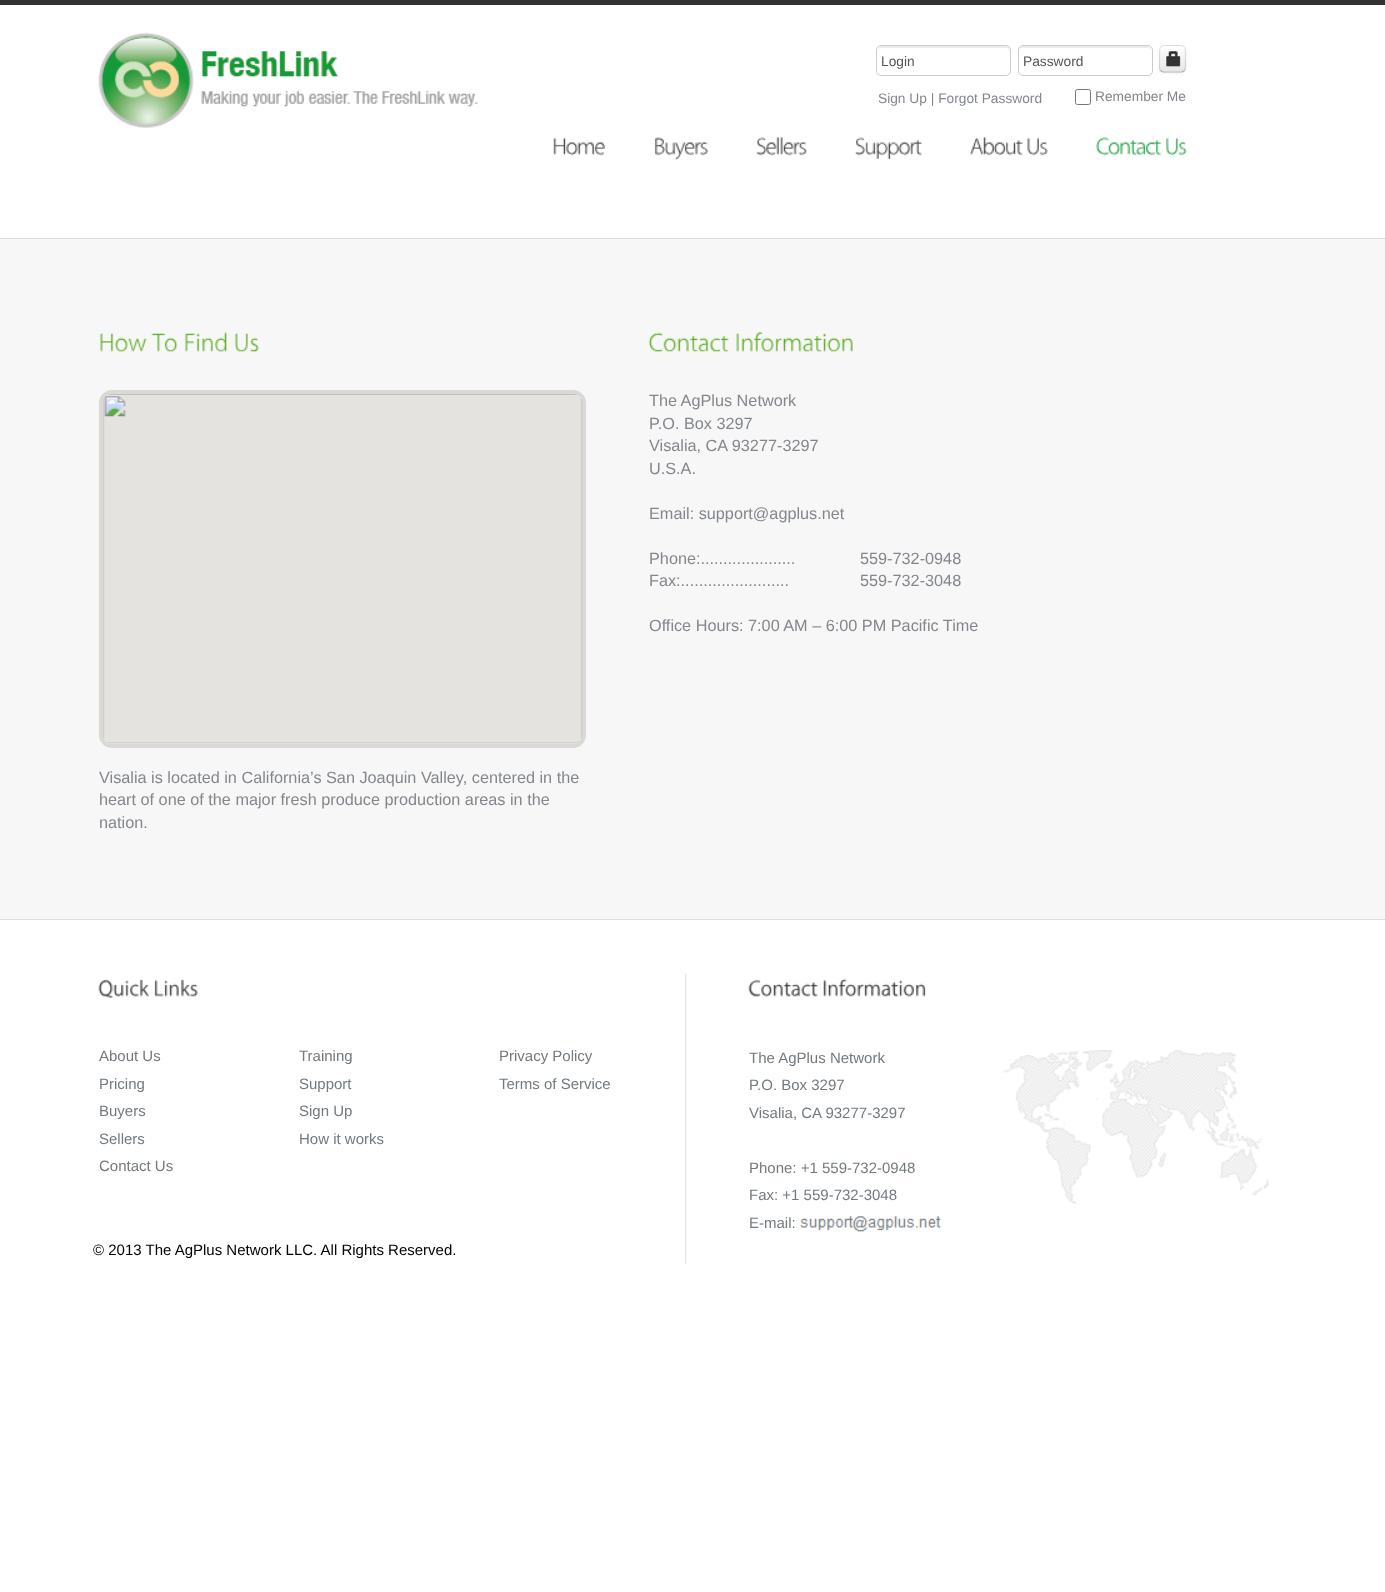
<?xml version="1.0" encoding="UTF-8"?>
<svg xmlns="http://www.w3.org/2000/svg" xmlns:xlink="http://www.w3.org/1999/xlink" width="1385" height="1592">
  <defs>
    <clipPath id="clip1"><rect x="1159" y="45" width="27" height="28" rx="5" /></clipPath>
    <linearGradient id="g1" gradientUnits="userSpaceOnUse" x1="1173" y1="46" x2="1173" y2="71"><stop offset="0" stop-color="#ffffff" /><stop offset="1" stop-color="#e6e6e6" /></linearGradient>
    <clipPath id="clip2"><rect x="93" y="974" width="1200" height="290" /></clipPath>
  </defs>
  <rect width="100%" height="100%" fill="#ffffff" />
  <rect width="1385" height="5" fill="#333333" />
  <rect y="238" width="1385" height="1" fill="#dfdfdf" />
  <image x="98" y="32" width="380" height="96" xlink:href="image1.png" />
  <path d="M 881 48 h 125 c 2 0 4 1 4 3 v -1 c 0 -2 -2 -4 -4 -4 h -124 c -2 0 -4 2 -4 4 v 1 c 0 -2 1 -3 3 -3 z" fill="#ececec" />
  <rect x="876.5" y="45.5" width="134" height="30" rx="4.5" fill="none" stroke="#cccccc" />
  <path d="M 1022 48 h 126 c 2 0 3 1 3 3 v -1 c 0 -2 -2 -4 -4 -4 h -124 c -2 0 -4 2 -4 4 v 1 c 0 -2 1 -3 3 -3 z" fill="#ececec" />
  <rect x="1018.5" y="45.5" width="134" height="30" rx="4.5" fill="none" stroke="#cccccc" />
  <rect x="1159" y="46" width="27" height="28" rx="5" fill="#000000" fill-opacity="0.05" filter="blur(1px)" />
  <rect x="1159" y="45" width="27" height="28" rx="5" fill="#f5f5f5" />
  <g clip-path="url(#clip1)">
    <rect x="1159" y="46" width="27" height="25" fill="url(#g1)" />
  </g>
  <path d="M 1184.5 70.5 c -1 1 -2 1.5 -3.5 1.5 h -17 c -1.5 0 -2.5 -0.5 -3.5 -1.5" fill="none" stroke="#b3b3b3" stroke-width="1.2" />
  <path d="M 1160.5 70.5 c -1.5 -1.5 -1 -4 -1 -6 v -5.5 c 0 -14.5 -1 -13.5 13 -13.5 c 14 0 13 -1 13 13.5 v 5.5 c 0 2 0.5 4.5 -1 6" fill="none" stroke="#000000" stroke-opacity="0.1" stroke-width="1.2" />
  <image x="1166" y="51" width="15" height="16" xlink:href="image2.png" />
  <rect x="1075.5" y="89.5" width="15" height="15" rx="2" fill="none" stroke="#767676" />
  <image x="553" y="137" width="53" height="19" xlink:href="image3.png" />
  <image x="654" y="137" width="54" height="23" xlink:href="image4.png" />
  <image x="756" y="137" width="51" height="19" xlink:href="image5.png" />
  <image x="855" y="137" width="68" height="22" xlink:href="image6.png" />
  <image x="970" y="137" width="53" height="19" xlink:href="image7.png" />
  <image x="1027" y="137" width="21" height="19" xlink:href="image8.png" />
  <image x="1096" y="137" width="66" height="19" xlink:href="image9.png" />
  <image x="1166" y="137" width="21" height="19" xlink:href="image10.png" />
  <rect y="239" width="1385" height="680" fill="#f7f7f7" />
  <rect y="919" width="1385" height="1" fill="#dfdfdf" />
  <image x="648" y="332" width="81" height="20" xlink:href="image11.png" />
  <image x="736" y="332" width="117" height="20" xlink:href="image12.png" />
  <image x="99" y="333" width="48" height="19" xlink:href="image13.png" />
  <image x="151" y="333" width="27" height="19" xlink:href="image14.png" />
  <image x="184" y="332" width="43" height="20" xlink:href="image15.png" />
  <image x="234" y="333" width="25" height="19" xlink:href="image16.png" />
  <rect x="101" y="392" width="483" height="354" rx="11" fill="none" stroke="#dbd9d6" stroke-width="4" />
  <image x="103" y="394" width="480" height="350" xlink:href="image17.png" />
  <image x="685" y="973" width="2" height="291" xlink:href="image18.png" />
  <image x="98" y="979" width="51" height="20" xlink:href="image19.png" />
  <image x="154" y="979" width="44" height="18" xlink:href="image20.png" />
  <image x="748" y="979" width="70" height="18" xlink:href="image21.png" />
  <image x="823" y="978" width="103" height="19" xlink:href="image22.png" />
  <image x="800" y="1216" width="142" height="16" xlink:href="image23.png" />
  <image x="1003" y="1050" width="266" height="154" xlink:href="image24.png" />
  <text x="881" y="66" style="font-family: Liberation Sans; font-size: 13.75px; fill: #555555">Login</text>
  <text x="1023" y="66" style="font-family: Liberation Sans; font-size: 13.75px; fill: #555555">Password</text>
  <text x="878" y="103" style="font-family: Liberation Sans; font-size: 13.75px; fill: #83878d">Sign Up | Forgot Password</text>
  <text x="1095" y="101" style="font-family: Liberation Sans; font-size: 13.75px; fill: #83878d">Remember Me</text>
  <text x="649" y="406" style="font-family: Liberation Sans; font-size: 16.25px; fill: #83878d">The AgPlus Network</text>
  <text x="649" y="429" style="font-family: Liberation Sans; font-size: 16.25px; fill: #83878d">P.O. Box 3297</text>
  <text x="649" y="451" style="font-family: Liberation Sans; font-size: 16.25px; fill: #83878d">Visalia, CA 93277-3297</text>
  <text x="649" y="474" style="font-family: Liberation Sans; font-size: 16.25px; fill: #83878d">U.S.A.</text>
  <text x="649" y="519" style="font-family: Liberation Sans; font-size: 16.25px; fill: #83878d">Email: support@agplus.net</text>
  <text x="649" y="564" style="font-family: Liberation Sans; font-size: 16.25px; fill: #83878d">Phone:.....................</text>
  <text x="860" y="564" style="font-family: Liberation Sans; font-size: 16.25px; fill: #83878d">559-732-0948</text>
  <text x="649" y="586" style="font-family: Liberation Sans; font-size: 16.25px; fill: #83878d">Fax:........................</text>
  <text x="860" y="586" style="font-family: Liberation Sans; font-size: 16.25px; fill: #83878d">559-732-3048</text>
  <text x="649" y="631" style="font-family: Liberation Sans; font-size: 16.25px; fill: #83878d">Office Hours: 7:00 AM – 6:00 PM Pacific Time</text>
  <text x="99" y="783" style="font-family: Liberation Sans; font-size: 16.25px; fill: #83878d">Visalia is located in California’s San Joaquin Valley, centered in the</text>
  <text x="99" y="805" style="font-family: Liberation Sans; font-size: 16.25px; fill: #83878d">heart of one of the major fresh produce production areas in the</text>
  <text x="99" y="828" style="font-family: Liberation Sans; font-size: 16.25px; fill: #83878d">nation.</text>
  <text x="99" y="1061" style="font-family: Liberation Sans; font-size: 15px; fill: #737a7f">About Us</text>
  <text x="99" y="1089" style="font-family: Liberation Sans; font-size: 15px; fill: #737a7f">Pricing</text>
  <text x="99" y="1116" style="font-family: Liberation Sans; font-size: 15px; fill: #737a7f">Buyers</text>
  <text x="99" y="1144" style="font-family: Liberation Sans; font-size: 15px; fill: #737a7f">Sellers</text>
  <text x="99" y="1171" style="font-family: Liberation Sans; font-size: 15px; fill: #737a7f">Contact Us</text>
  <text x="299" y="1061" style="font-family: Liberation Sans; font-size: 15px; fill: #737a7f">Training</text>
  <text x="299" y="1089" style="font-family: Liberation Sans; font-size: 15px; fill: #737a7f">Support</text>
  <text x="299" y="1116" style="font-family: Liberation Sans; font-size: 15px; fill: #737a7f">Sign Up</text>
  <text x="299" y="1144" style="font-family: Liberation Sans; font-size: 15px; fill: #737a7f">How it works</text>
  <text x="499" y="1061" style="font-family: Liberation Sans; font-size: 15px; fill: #737a7f">Privacy Policy</text>
  <text x="499" y="1089" style="font-family: Liberation Sans; font-size: 15px; fill: #737a7f">Terms of Service</text>
  <text x="749" y="1063" style="font-family: Liberation Sans; font-size: 15px; fill: #737a7f">The AgPlus Network</text>
  <text x="749" y="1090" style="font-family: Liberation Sans; font-size: 15px; fill: #737a7f">P.O. Box 3297</text>
  <text x="749" y="1118" style="font-family: Liberation Sans; font-size: 15px; fill: #737a7f">Visalia, CA 93277-3297</text>
  <text x="749" y="1173" style="font-family: Liberation Sans; font-size: 15px; fill: #737a7f">Phone: +1 559-732-0948</text>
  <text x="749" y="1200" style="font-family: Liberation Sans; font-size: 15px; fill: #737a7f">Fax: +1 559-732-3048</text>
  <text x="749" y="1228" style="font-family: Liberation Sans; font-size: 15px; fill: #737a7f">E-mail:</text>
  <g clip-path="url(#clip2)">
    <text x="93" y="1255" style="font-family: Liberation Sans; font-size: 15px; fill: #000000">© 2013 The AgPlus Network LLC. All Rights Reserved.</text>
  </g>
</svg>
